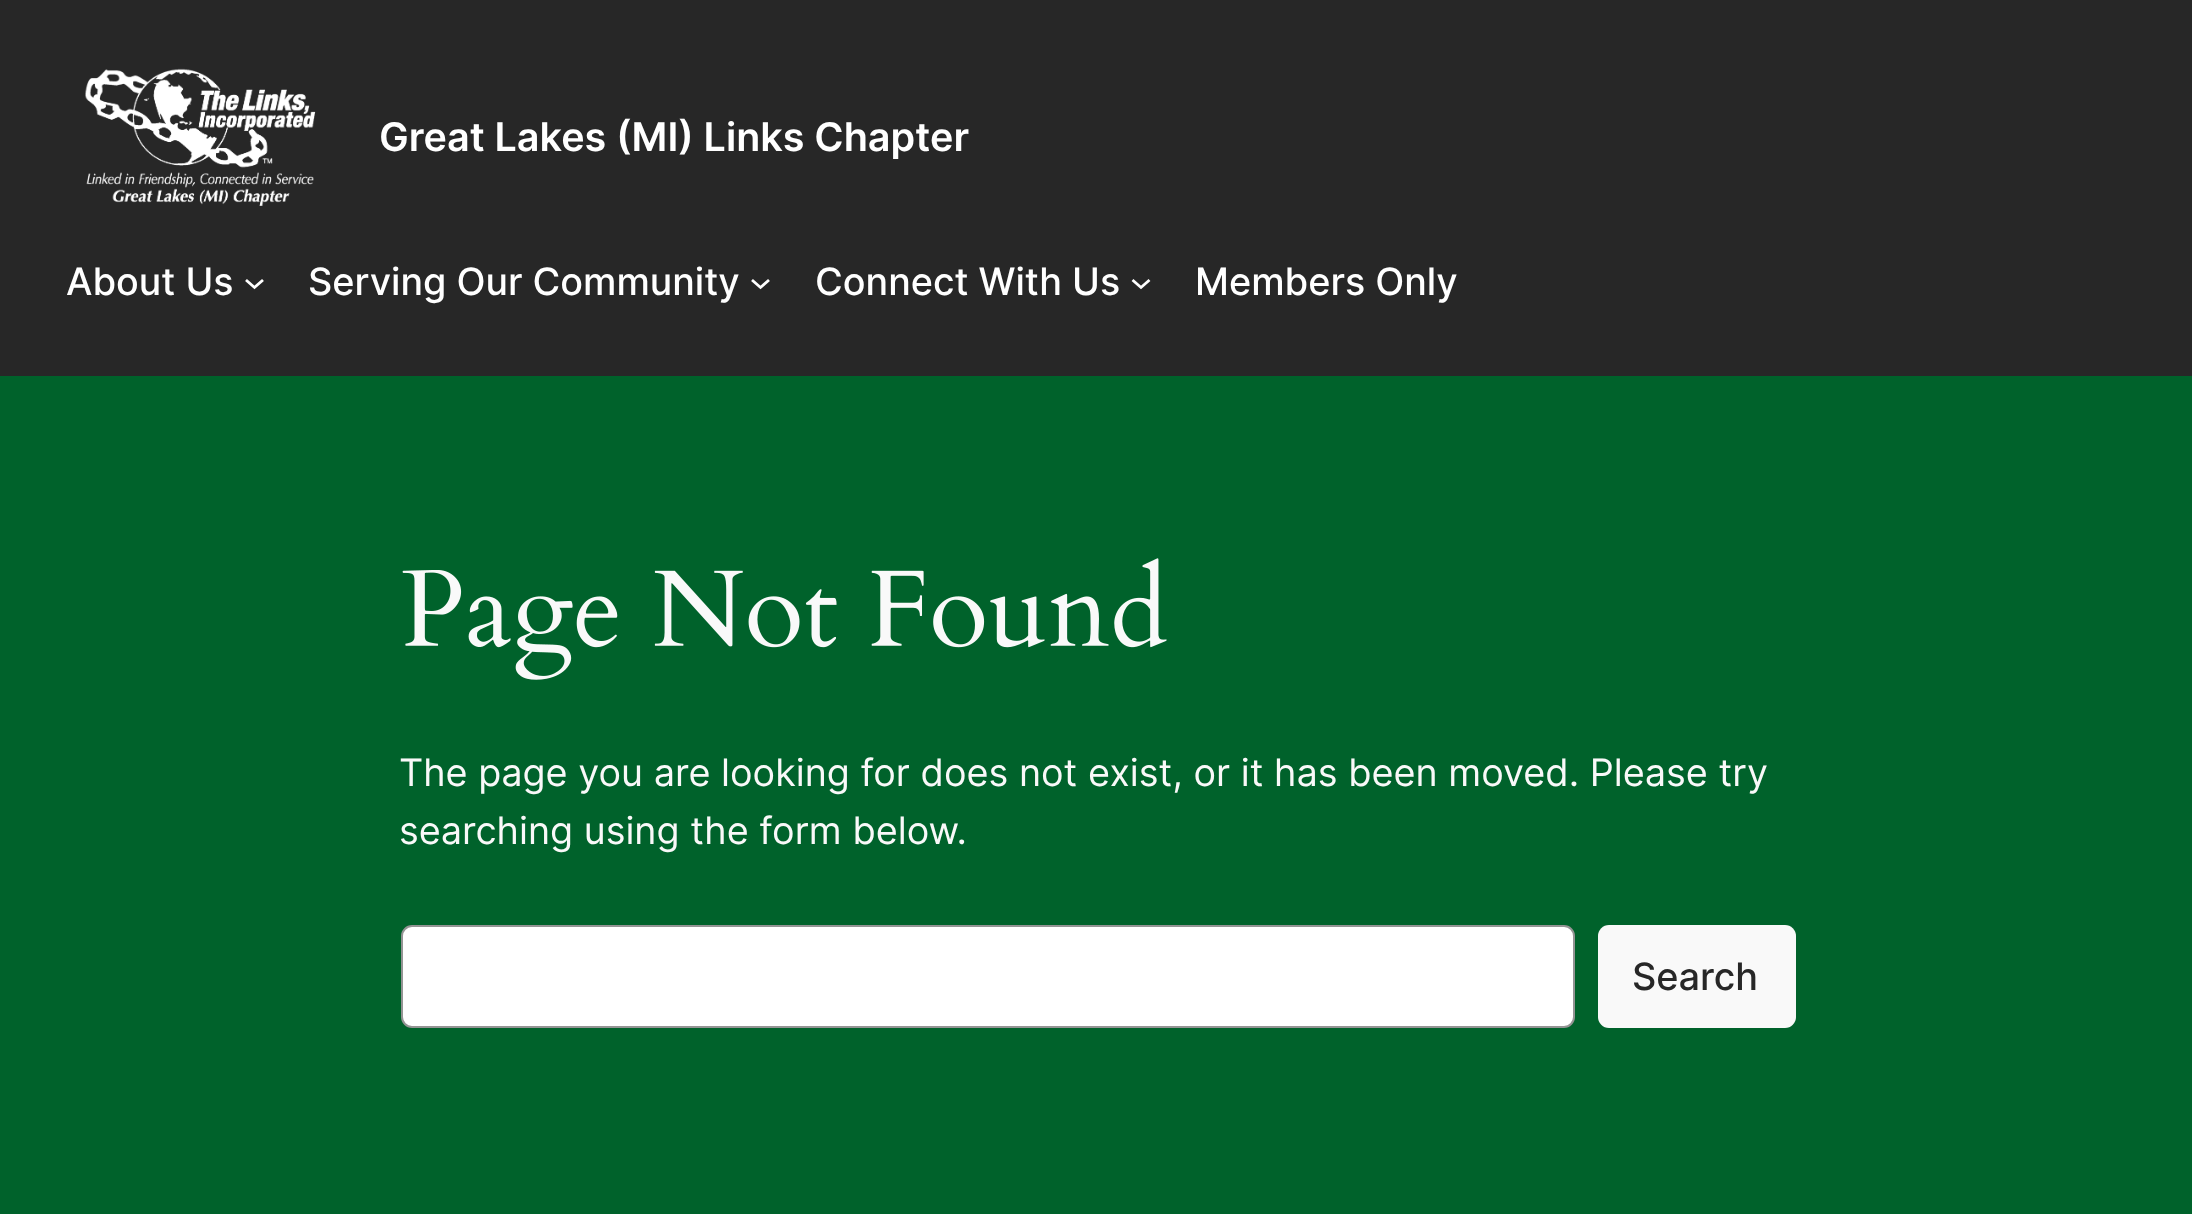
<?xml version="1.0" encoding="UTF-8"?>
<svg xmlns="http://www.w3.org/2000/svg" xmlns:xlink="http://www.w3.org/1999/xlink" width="2192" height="1214">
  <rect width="100%" height="100%" fill="#00622b" />
  <rect width="2192" height="376" fill="#272727" />
  <image x="85" y="68" width="231" height="138" xlink:href="image1.png" />
  <path d="M 246 280 l 8.5 7.5 l 8.5 -7.5" fill="none" stroke="#ffffff" stroke-width="2.8" />
  <path d="M 752 280 l 8.5 7.5 l 8.5 -7.5" fill="none" stroke="#ffffff" stroke-width="2.8" />
  <path d="M 1132.5 280 l 8.5 7.5 l 8.5 -7.5" fill="none" stroke="#ffffff" stroke-width="2.8" />
  <image x="402" y="558" width="765" height="122" xlink:href="image2.png" />
  <rect x="402" y="926" width="1172" height="101" rx="10" fill="#ffffff" stroke="#949494" stroke-width="2" />
  <rect x="1598" y="925" width="198" height="103" rx="11" fill="#f9f9f9" />
  <text x="379" y="151" style="font-family: Inter; font-size: 39.5px; font-weight: 600; fill: #ffffff">Great Lakes (MI) Links Chapter</text>
  <text x="66" y="295" style="font-family: Inter; font-size: 37.8px; font-weight: 500; fill: #ffffff">About Us</text>
  <text x="308" y="295" style="font-family: Inter; font-size: 37.8px; font-weight: 500; fill: #ffffff">Serving Our Community</text>
  <text x="815" y="295" style="font-family: Inter; font-size: 37.8px; font-weight: 500; fill: #ffffff">Connect With Us</text>
  <text x="1195" y="295" style="font-family: Inter; font-size: 37.8px; font-weight: 500; fill: #ffffff">Members Only</text>
  <text x="399" y="786" style="font-family: Inter; font-size: 37.8px; fill: #f9f9f9">The page you are looking for does not exist, or it has been moved. Please try</text>
  <text x="399" y="844" style="font-family: Inter; font-size: 37.8px; fill: #f9f9f9">searching using the form below.</text>
  <text x="1632" y="990" style="font-family: Inter; font-size: 37.8px; font-weight: 500; fill: #272727">Search</text>
</svg>
